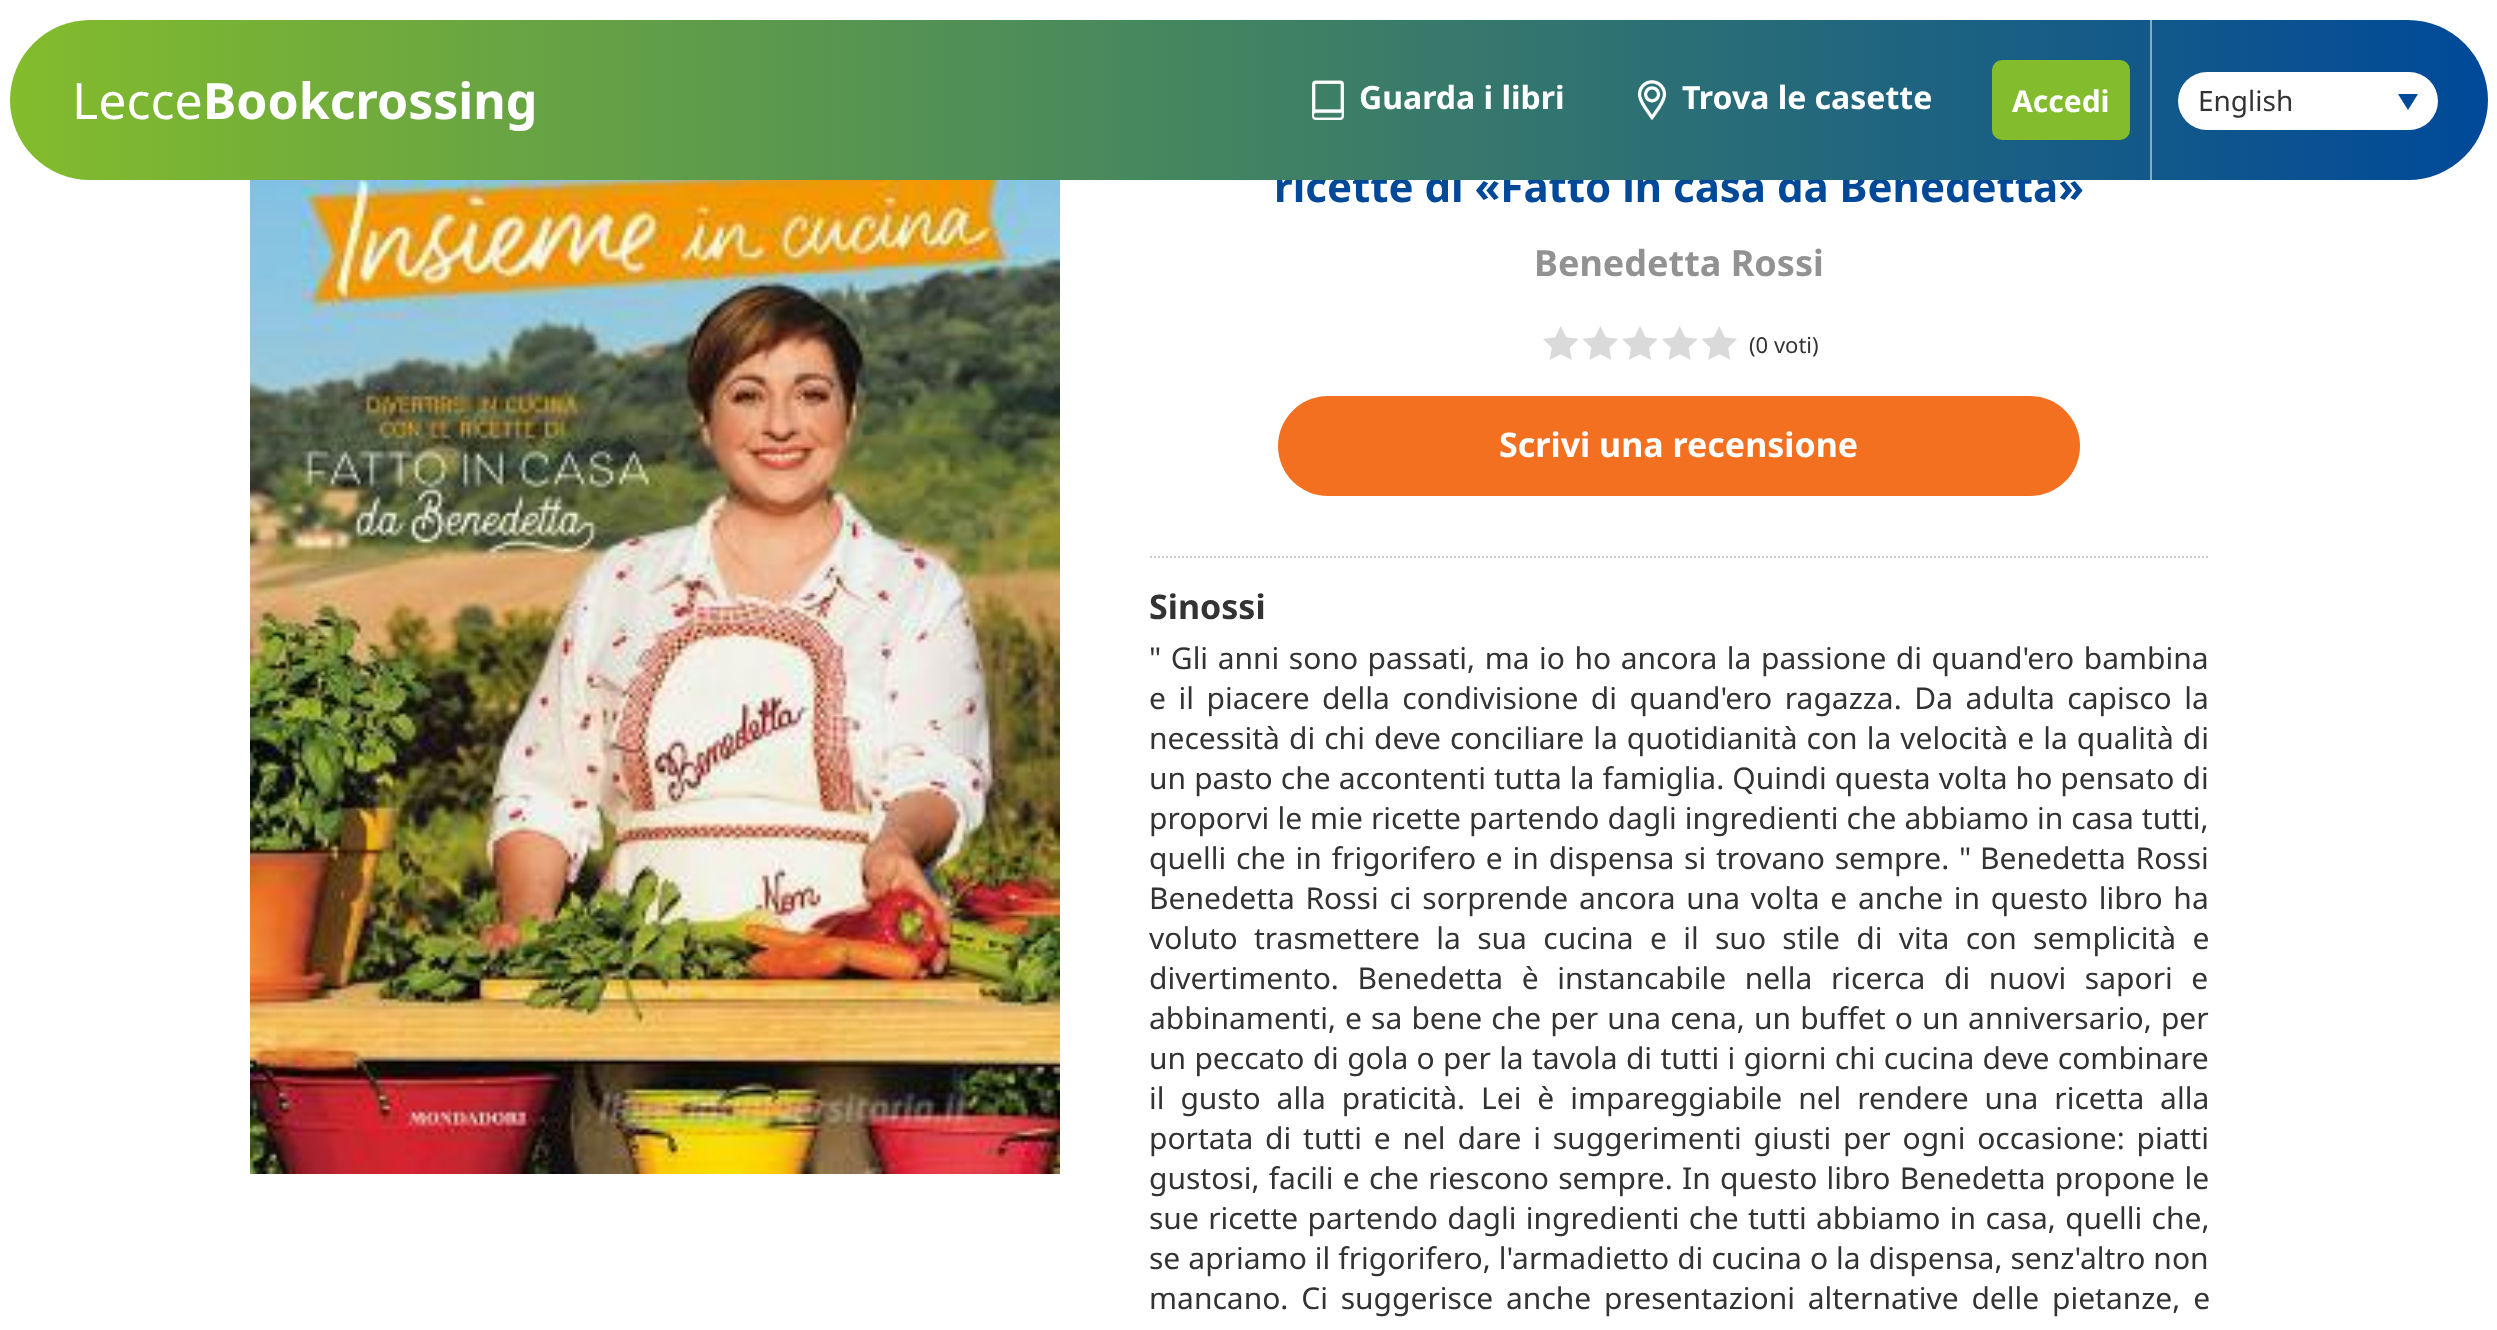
<?xml version="1.0" encoding="UTF-8"?>
<svg xmlns="http://www.w3.org/2000/svg" xmlns:xlink="http://www.w3.org/1999/xlink" width="2497" height="1330">
  <defs>
    <linearGradient id="g1" gradientUnits="userSpaceOnUse" x1="10" y1="100" x2="2488" y2="100"><stop offset="0" stop-color="#83bc2c" /><stop offset="1" stop-color="#004999" /></linearGradient>
  </defs>
  <rect width="100%" height="100%" fill="#ffffff" />
  <image x="250" y="180" width="810" height="994" xlink:href="image3.png" />
  <image x="1543" y="326" width="194" height="34" xlink:href="image4.png" />
  <rect x="1278" y="396" width="802" height="100" rx="50" fill="#f37021" />
  <path d="M 1150 557 h 1060" fill="none" stroke="#cccccc" stroke-width="2" stroke-dasharray="2 2" />
  <text x="1274" y="202" style="font-family: Noto Sans; font-size: 42px; font-weight: bold; fill: #004999">ricette di «Fatto in casa da Benedetta»</text>
  <rect x="10" y="20" width="2478" height="160" rx="80" fill="url(#g1)" />
  <text x="203" y="119" style="font-family: Noto Sans; font-size: 50px; font-weight: bold; fill: #ffffff">Bookcrossing</text>
  <text x="72" y="119" style="font-family: Noto Sans; font-size: 50px; fill: #ffffff">Lecce</text>
  <rect x="1992" y="60" width="138" height="80" rx="10" fill="#83bc2c" />
  <text x="2012" y="112" style="font-family: Noto Sans; font-size: 30px; font-weight: bold; fill: #ffffff">Accedi</text>
  <text x="1682" y="109" style="font-family: Noto Sans; font-size: 32px; font-weight: bold; fill: #ffffff">Trova le casette</text>
  <image x="1637" y="80" width="30" height="40" xlink:href="image2.png" />
  <text x="1359" y="109" style="font-family: Noto Sans; font-size: 32px; font-weight: bold; fill: #ffffff">Guarda i libri</text>
  <image x="1312" y="80" width="32" height="40" xlink:href="image1.png" />
  <rect x="2178" y="72" width="260" height="58" rx="29" fill="#ffffff" />
  <path d="M 2398 94 h 20 l -10 16 z" fill="#004999" />
  <text x="2198" y="111" style="font-family: Noto Sans; font-size: 28px; fill: #333333">English</text>
  <rect x="2150" y="20" width="2" height="160" fill="#89acc5" />
  <text x="1534" y="276" style="font-family: Noto Sans; font-size: 36px; font-weight: bold; fill: #929292">Benedetta Rossi</text>
  <text x="1749" y="353" style="font-family: Noto Sans; font-size: 22px; fill: #333333">(0 voti)</text>
  <text x="1499" y="457" style="font-family: Noto Sans; font-size: 34px; font-weight: bold; fill: #ffffff">Scrivi una recensione</text>
  <text x="1149" y="619" style="font-family: Noto Sans; font-size: 34px; font-weight: bold; fill: #333333">Sinossi</text>
  <text x="1149" y="669" word-spacing="1.75" style="font-family: Noto Sans; font-size: 30px; fill: #333333">" Gli anni sono passati, ma io ho ancora la passione di quand'ero bambina</text>
  <text x="1149" y="709" word-spacing="4.75" style="font-family: Noto Sans; font-size: 30px; fill: #333333">e il piacere della condivisione di quand'ero ragazza. Da adulta capisco la</text>
  <text x="1149" y="749" word-spacing="1.25" style="font-family: Noto Sans; font-size: 30px; fill: #333333">necessità di chi deve conciliare la quotidianità con la velocità e la qualità di</text>
  <text x="1149" y="789" word-spacing="0.25" style="font-family: Noto Sans; font-size: 30px; fill: #333333">un pasto che accontenti tutta la famiglia. Quindi questa volta ho pensato di</text>
  <text x="1149" y="829" word-spacing="0.25" style="font-family: Noto Sans; font-size: 30px; fill: #333333">proporvi le mie ricette partendo dagli ingredienti che abbiamo in casa tutti,</text>
  <text x="1149" y="869" word-spacing="2" style="font-family: Noto Sans; font-size: 30px; fill: #333333">quelli che in frigorifero e in dispensa si trovano sempre. "</text>
  <text x="1980" y="869" word-spacing="2" style="font-family: Noto Sans; font-size: 30px; fill: #333333">Benedetta Rossi</text>
  <text x="1149" y="909" word-spacing="2.9" style="font-family: Noto Sans; font-size: 30px; fill: #333333">Benedetta Rossi ci sorprende ancora una volta e anche in questo libro ha</text>
  <text x="1149" y="949" word-spacing="8.5" style="font-family: Noto Sans; font-size: 30px; fill: #333333">voluto trasmettere la sua cucina e il suo stile di vita con semplicità e</text>
  <text x="1149" y="989" word-spacing="10.75" style="font-family: Noto Sans; font-size: 30px; fill: #333333">divertimento. Benedetta è instancabile nella ricerca di nuovi sapori e</text>
  <text x="1149" y="1029" word-spacing="1.3" style="font-family: Noto Sans; font-size: 30px; fill: #333333">abbinamenti, e sa bene che per una cena, un buffet o un anniversario, per</text>
  <text x="1149" y="1069" word-spacing="0.5" style="font-family: Noto Sans; font-size: 30px; fill: #333333">un peccato di gola o per la tavola di tutti i giorni chi cucina deve combinare</text>
  <text x="1149" y="1109" word-spacing="8.1" style="font-family: Noto Sans; font-size: 30px; fill: #333333">il gusto alla praticità. Lei è impareggiabile nel rendere una ricetta alla</text>
  <text x="1149" y="1149" word-spacing="4" style="font-family: Noto Sans; font-size: 30px; fill: #333333">portata di tutti e nel dare i suggerimenti giusti per ogni occasione: piatti</text>
  <text x="1149" y="1189" word-spacing="1.5" style="font-family: Noto Sans; font-size: 30px; fill: #333333">gustosi, facili e che riescono sempre. In questo libro Benedetta propone le</text>
  <text x="1149" y="1229" word-spacing="1.5" style="font-family: Noto Sans; font-size: 30px; fill: #333333">sue ricette partendo dagli ingredienti che tutti abbiamo in casa, quelli che,</text>
  <text x="1149" y="1269" word-spacing="0.25" style="font-family: Noto Sans; font-size: 30px; fill: #333333">se apriamo il frigorifero, l'armadietto di cucina o la dispensa, senz'altro non</text>
  <text x="1149" y="1309" word-spacing="5" style="font-family: Noto Sans; font-size: 30px; fill: #333333">mancano. Ci suggerisce anche presentazioni alternative delle pietanze, e</text>
</svg>
